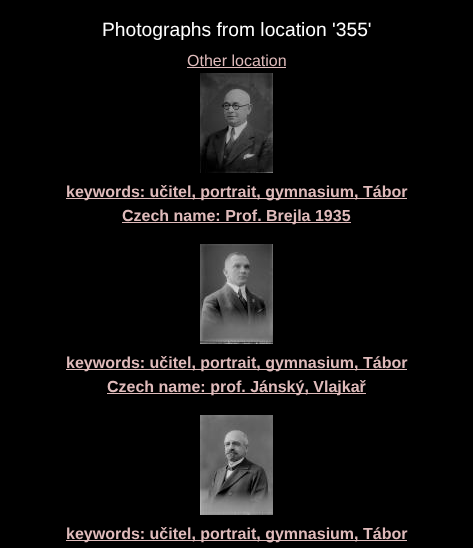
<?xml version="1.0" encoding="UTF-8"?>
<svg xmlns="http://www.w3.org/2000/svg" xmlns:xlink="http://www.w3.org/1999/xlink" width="473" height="548">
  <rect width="100%" height="100%" fill="#000000" />
  <rect x="187" y="67" width="99" height="1" fill="#dfbbbb" />
  <image x="200" y="73" width="73" height="100" xlink:href="image1.png" />
  <rect x="66" y="198" width="341" height="1" fill="#dfbbbb" />
  <rect x="122" y="222" width="229" height="1" fill="#dfbbbb" />
  <image x="200" y="244" width="73" height="100" xlink:href="image2.png" />
  <rect x="66" y="369" width="341" height="1" fill="#dfbbbb" />
  <rect x="107" y="393" width="259" height="1" fill="#dfbbbb" />
  <image x="200" y="415" width="73" height="100" xlink:href="image3.png" />
  <rect x="66" y="540" width="341" height="1" fill="#dfbbbb" />
  <text x="102" y="36" style="font-family: Liberation Sans; font-size: 19.25px; fill: #ffffff">Photographs from location '355'</text>
  <text x="187" y="66" style="font-family: Liberation Sans; font-size: 16px; fill: #dfbbbb">Other location</text>
  <text x="66" y="197" style="font-family: Liberation Sans; font-size: 16px; font-weight: bold; fill: #dfbbbb">keywords: učitel, portrait, gymnasium, Tábor</text>
  <text x="122" y="221" style="font-family: Liberation Sans; font-size: 16px; font-weight: bold; fill: #dfbbbb">Czech name: Prof. Brejla 1935</text>
  <text x="66" y="368" style="font-family: Liberation Sans; font-size: 16px; font-weight: bold; fill: #dfbbbb">keywords: učitel, portrait, gymnasium, Tábor</text>
  <text x="107" y="392" style="font-family: Liberation Sans; font-size: 16px; font-weight: bold; fill: #dfbbbb">Czech name: prof. Jánský, Vlajkař</text>
  <text x="66" y="539" style="font-family: Liberation Sans; font-size: 16px; font-weight: bold; fill: #dfbbbb">keywords: učitel, portrait, gymnasium, Tábor</text>
</svg>
